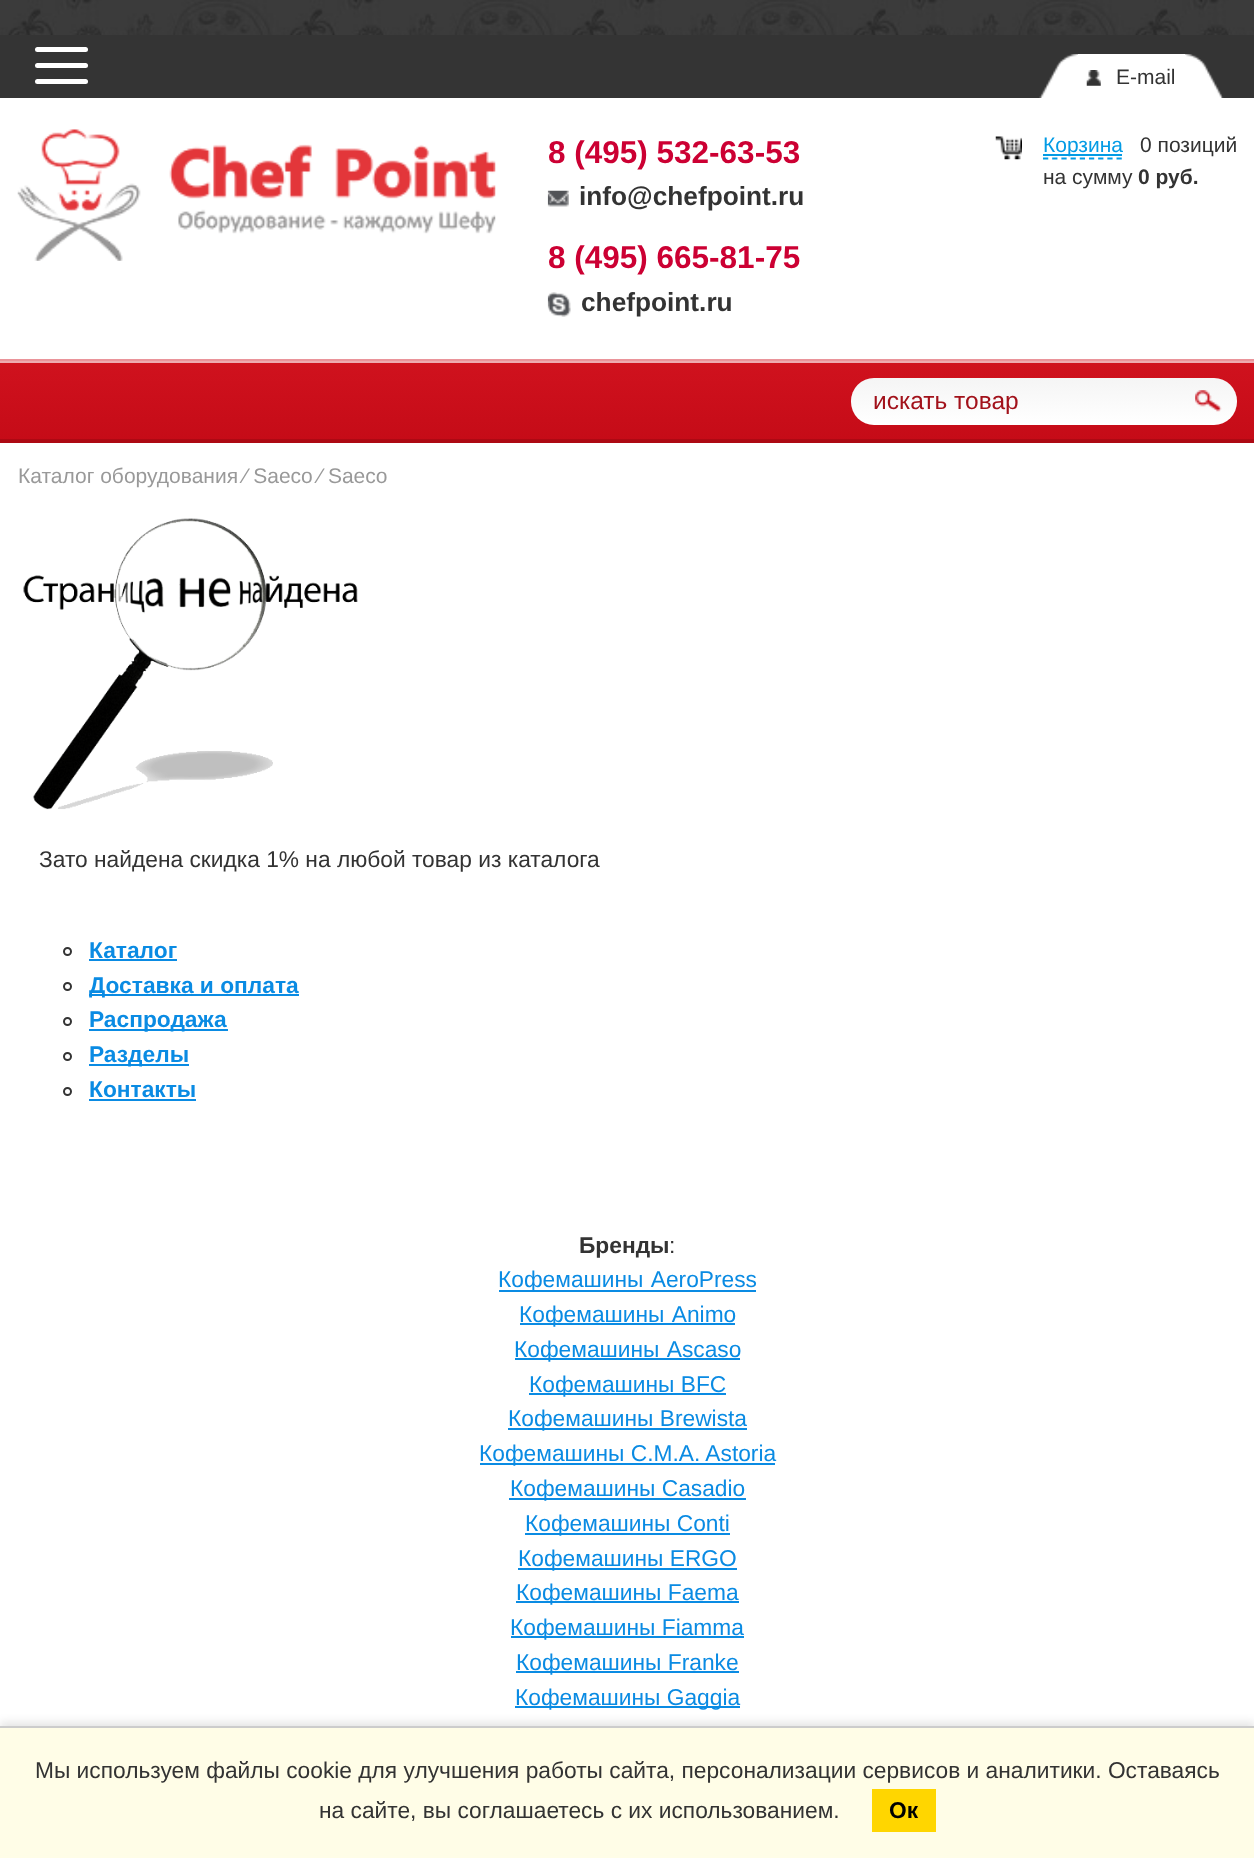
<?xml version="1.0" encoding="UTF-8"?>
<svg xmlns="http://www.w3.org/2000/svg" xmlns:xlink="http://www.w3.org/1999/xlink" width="1254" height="1858">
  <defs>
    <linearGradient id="g1" gradientUnits="userSpaceOnUse" x1="627" y1="359" x2="627" y2="443"><stop offset="0" stop-color="#d0121e" /><stop offset="1" stop-color="#c50b17" /></linearGradient>
    <linearGradient id="g2" gradientUnits="userSpaceOnUse" x1="1044" y1="378" x2="1044" y2="425"><stop offset="0" stop-color="#f5f5f5" /><stop offset="1" stop-color="#ffffff" /></linearGradient>
  </defs>
  <rect width="100%" height="100%" fill="#ffffff" />
  <image x="0" y="0" width="1254" height="35" xlink:href="image1.png" />
  <rect y="35" width="1254" height="63" fill="#343434" />
  <rect x="35" y="47" width="53" height="5" rx="2.5" fill="#ffffff" />
  <rect x="35" y="63" width="53" height="5" rx="2.5" fill="#ffffff" />
  <rect x="35" y="79" width="53" height="5" rx="2.5" fill="#ffffff" />
  <rect x="1078" y="54" width="107" height="44" fill="#ffffff" />
  <image x="1039" y="54" width="39" height="44" xlink:href="image2.png" />
  <image x="1086" y="70" width="15" height="16" xlink:href="image3.png" />
  <image x="1185" y="54" width="39" height="44" xlink:href="image4.png" />
  <image x="17" y="129" width="479" height="132" xlink:href="image5.png" />
  <image x="547" y="190" width="22" height="17" xlink:href="image6.png" />
  <image x="547" y="292" width="24" height="25" xlink:href="image7.png" />
  <image x="995" y="136" width="27" height="24" xlink:href="image8.png" />
  <path d="M 1043 158.5 h 79" fill="none" stroke="#039be5" stroke-width="1.8" stroke-dasharray="5.25 3.94" />
  <rect x="1043" y="154" width="79" height="2" fill="#039be5" />
  <rect y="363" width="1254" height="76" fill="url(#g1)" />
  <rect y="439" width="1254" height="4" fill="#ad0913" />
  <rect y="361" width="1254" height="2" fill="#eeabb0" />
  <rect y="359" width="1254" height="2" fill="#ea949a" />
  <rect x="851" y="378" width="386" height="47" rx="23" fill="url(#g2)" />
  <image x="1195" y="390" width="27" height="22" xlink:href="image9.png" />
  <image x="23" y="518" width="335" height="292" xlink:href="image10.png" />
  <circle cx="67.5" cy="951.5" r="3.5" fill="none" stroke="#333333" stroke-width="2" />
  <rect x="89" y="959" width="88" height="2" fill="#0a8be3" />
  <circle cx="67.5" cy="986.5" r="3.5" fill="none" stroke="#333333" stroke-width="2" />
  <rect x="89" y="994" width="210" height="2" fill="#0a8be3" />
  <circle cx="67.5" cy="1021.5" r="3.5" fill="none" stroke="#333333" stroke-width="2" />
  <rect x="89" y="1029" width="139" height="2" fill="#0a8be3" />
  <circle cx="67.5" cy="1056.5" r="3.5" fill="none" stroke="#333333" stroke-width="2" />
  <rect x="89" y="1064" width="100" height="2" fill="#0a8be3" />
  <circle cx="67.5" cy="1091.5" r="3.5" fill="none" stroke="#333333" stroke-width="2" />
  <rect x="89" y="1099" width="107" height="2" fill="#0a8be3" />
  <rect x="499" y="1290" width="257" height="2" fill="#0a8be3" />
  <rect x="520" y="1323" width="215" height="2" fill="#0a8be3" />
  <rect x="515" y="1358" width="225" height="2" fill="#0a8be3" />
  <rect x="529" y="1393" width="197" height="2" fill="#0a8be3" />
  <rect x="508" y="1428" width="239" height="2" fill="#0a8be3" />
  <rect x="480" y="1463" width="295" height="2" fill="#0a8be3" />
  <rect x="509" y="1498" width="237" height="2" fill="#0a8be3" />
  <rect x="525" y="1533" width="205" height="2" fill="#0a8be3" />
  <rect x="518" y="1568" width="219" height="2" fill="#0a8be3" />
  <rect x="516" y="1601" width="223" height="2" fill="#0a8be3" />
  <rect x="511" y="1636" width="233" height="2" fill="#0a8be3" />
  <rect x="516" y="1671" width="223" height="2" fill="#0a8be3" />
  <rect x="515" y="1706" width="225" height="2" fill="#0a8be3" />
  <rect y="1722" width="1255" height="133" fill="#000000" fill-opacity="0.1" filter="blur(4.5px)" />
  <rect y="1728" width="1254" height="130" fill="#fffde7" />
  <rect y="1726" width="1254" height="2" fill="#cccccc" />
  <rect x="872" y="1789" width="64" height="43" fill="#ffd600" />
  <text x="1116" y="84" style="font-family: Liberation Sans; font-size: 21px; fill: #333333">E-mail</text>
  <text x="548" y="163" style="font-family: Liberation Sans; font-size: 31.5px; font-weight: bold; fill: #cc0033">8 (495) 532-63-53</text>
  <text x="579" y="205" style="font-family: Liberation Sans; font-size: 26.25px; font-weight: bold; fill: #333333">info@chefpoint.ru</text>
  <text x="548" y="268" style="font-family: Liberation Sans; font-size: 31.5px; font-weight: bold; fill: #cc0033">8 (495) 665-81-75</text>
  <text x="581" y="311" style="font-family: Liberation Sans; font-size: 26.25px; font-weight: bold; fill: #333333">chefpoint.ru</text>
  <text x="1043" y="152" style="font-family: Liberation Sans; font-size: 21px; fill: #039be5">Корзина</text>
  <text x="1140" y="152" style="font-family: Liberation Sans; font-size: 21px; fill: #333333">0 позиций</text>
  <text x="1043" y="184" style="font-family: Liberation Sans; font-size: 21px; fill: #333333">на сумму</text>
  <text x="1138" y="184" style="font-family: Liberation Sans; font-size: 21px; font-weight: bold; fill: #333333">0 руб.</text>
  <text x="873" y="409" style="font-family: Liberation Sans; font-size: 24.5px; fill: #a2121b">искать товар</text>
  <text x="18" y="483" style="font-family: Liberation Sans; font-size: 21px; fill: #999999">Каталог оборудования ⁄ Saeco ⁄ Saeco</text>
  <text x="39" y="867" style="font-family: Liberation Sans; font-size: 22.75px; fill: #333333">Зато найдена скидка 1% на любой товар из каталога</text>
  <text x="89" y="958" style="font-family: Liberation Sans; font-size: 22.75px; font-weight: bold; fill: #0a8be3">Каталог</text>
  <text x="89" y="993" style="font-family: Liberation Sans; font-size: 22.75px; font-weight: bold; fill: #0a8be3">Доставка и оплата</text>
  <text x="89" y="1027" style="font-family: Liberation Sans; font-size: 22.75px; font-weight: bold; fill: #0a8be3">Распродажа</text>
  <text x="89" y="1062" style="font-family: Liberation Sans; font-size: 22.75px; font-weight: bold; fill: #0a8be3">Разделы</text>
  <text x="89" y="1097" style="font-family: Liberation Sans; font-size: 22.75px; font-weight: bold; fill: #0a8be3">Контакты</text>
  <text x="579" y="1253" style="font-family: Liberation Sans; font-size: 22.75px; font-weight: bold; fill: #333333">Бренды</text>
  <text x="669" y="1253" style="font-family: Liberation Sans; font-size: 22.75px; fill: #333333">:</text>
  <text x="498" y="1287" word-spacing="1" style="font-family: Liberation Sans; font-size: 22.75px; fill: #0a8be3">Кофемашины AeroPress</text>
  <text x="519" y="1322" word-spacing="1" style="font-family: Liberation Sans; font-size: 22.75px; fill: #0a8be3">Кофемашины Animo</text>
  <text x="514" y="1357" word-spacing="1" style="font-family: Liberation Sans; font-size: 22.75px; fill: #0a8be3">Кофемашины Ascaso</text>
  <text x="529" y="1392" style="font-family: Liberation Sans; font-size: 22.75px; fill: #0a8be3">Кофемашины BFC</text>
  <text x="508" y="1426" style="font-family: Liberation Sans; font-size: 22.75px; fill: #0a8be3">Кофемашины Brewista</text>
  <text x="479" y="1461" style="font-family: Liberation Sans; font-size: 22.75px; fill: #0a8be3">Кофемашины C.M.A. Astoria</text>
  <text x="510" y="1496" style="font-family: Liberation Sans; font-size: 22.75px; fill: #0a8be3">Кофемашины Casadio</text>
  <text x="525" y="1531" style="font-family: Liberation Sans; font-size: 22.75px; fill: #0a8be3">Кофемашины Conti</text>
  <text x="518" y="1566" style="font-family: Liberation Sans; font-size: 22.75px; fill: #0a8be3">Кофемашины ERGO</text>
  <text x="516" y="1600" style="font-family: Liberation Sans; font-size: 22.75px; fill: #0a8be3">Кофемашины Faema</text>
  <text x="510" y="1635" style="font-family: Liberation Sans; font-size: 22.75px; fill: #0a8be3">Кофемашины Fiamma</text>
  <text x="516" y="1670" style="font-family: Liberation Sans; font-size: 22.75px; fill: #0a8be3">Кофемашины Franke</text>
  <text x="515" y="1705" style="font-family: Liberation Sans; font-size: 22.75px; fill: #0a8be3">Кофемашины Gaggia</text>
  <text x="35" y="1778" style="font-family: Liberation Sans; font-size: 22.75px; fill: #333333">Мы используем файлы cookie для улучшения работы сайта, персонализации сервисов и аналитики. Оставаясь</text>
  <text x="319" y="1818" style="font-family: Liberation Sans; font-size: 22.75px; fill: #333333">на сайте, вы соглашаетесь с их использованием.</text>
  <text x="889" y="1818" style="font-family: Liberation Sans; font-size: 22.75px; font-weight: bold; fill: #000000">Ок</text>
</svg>
